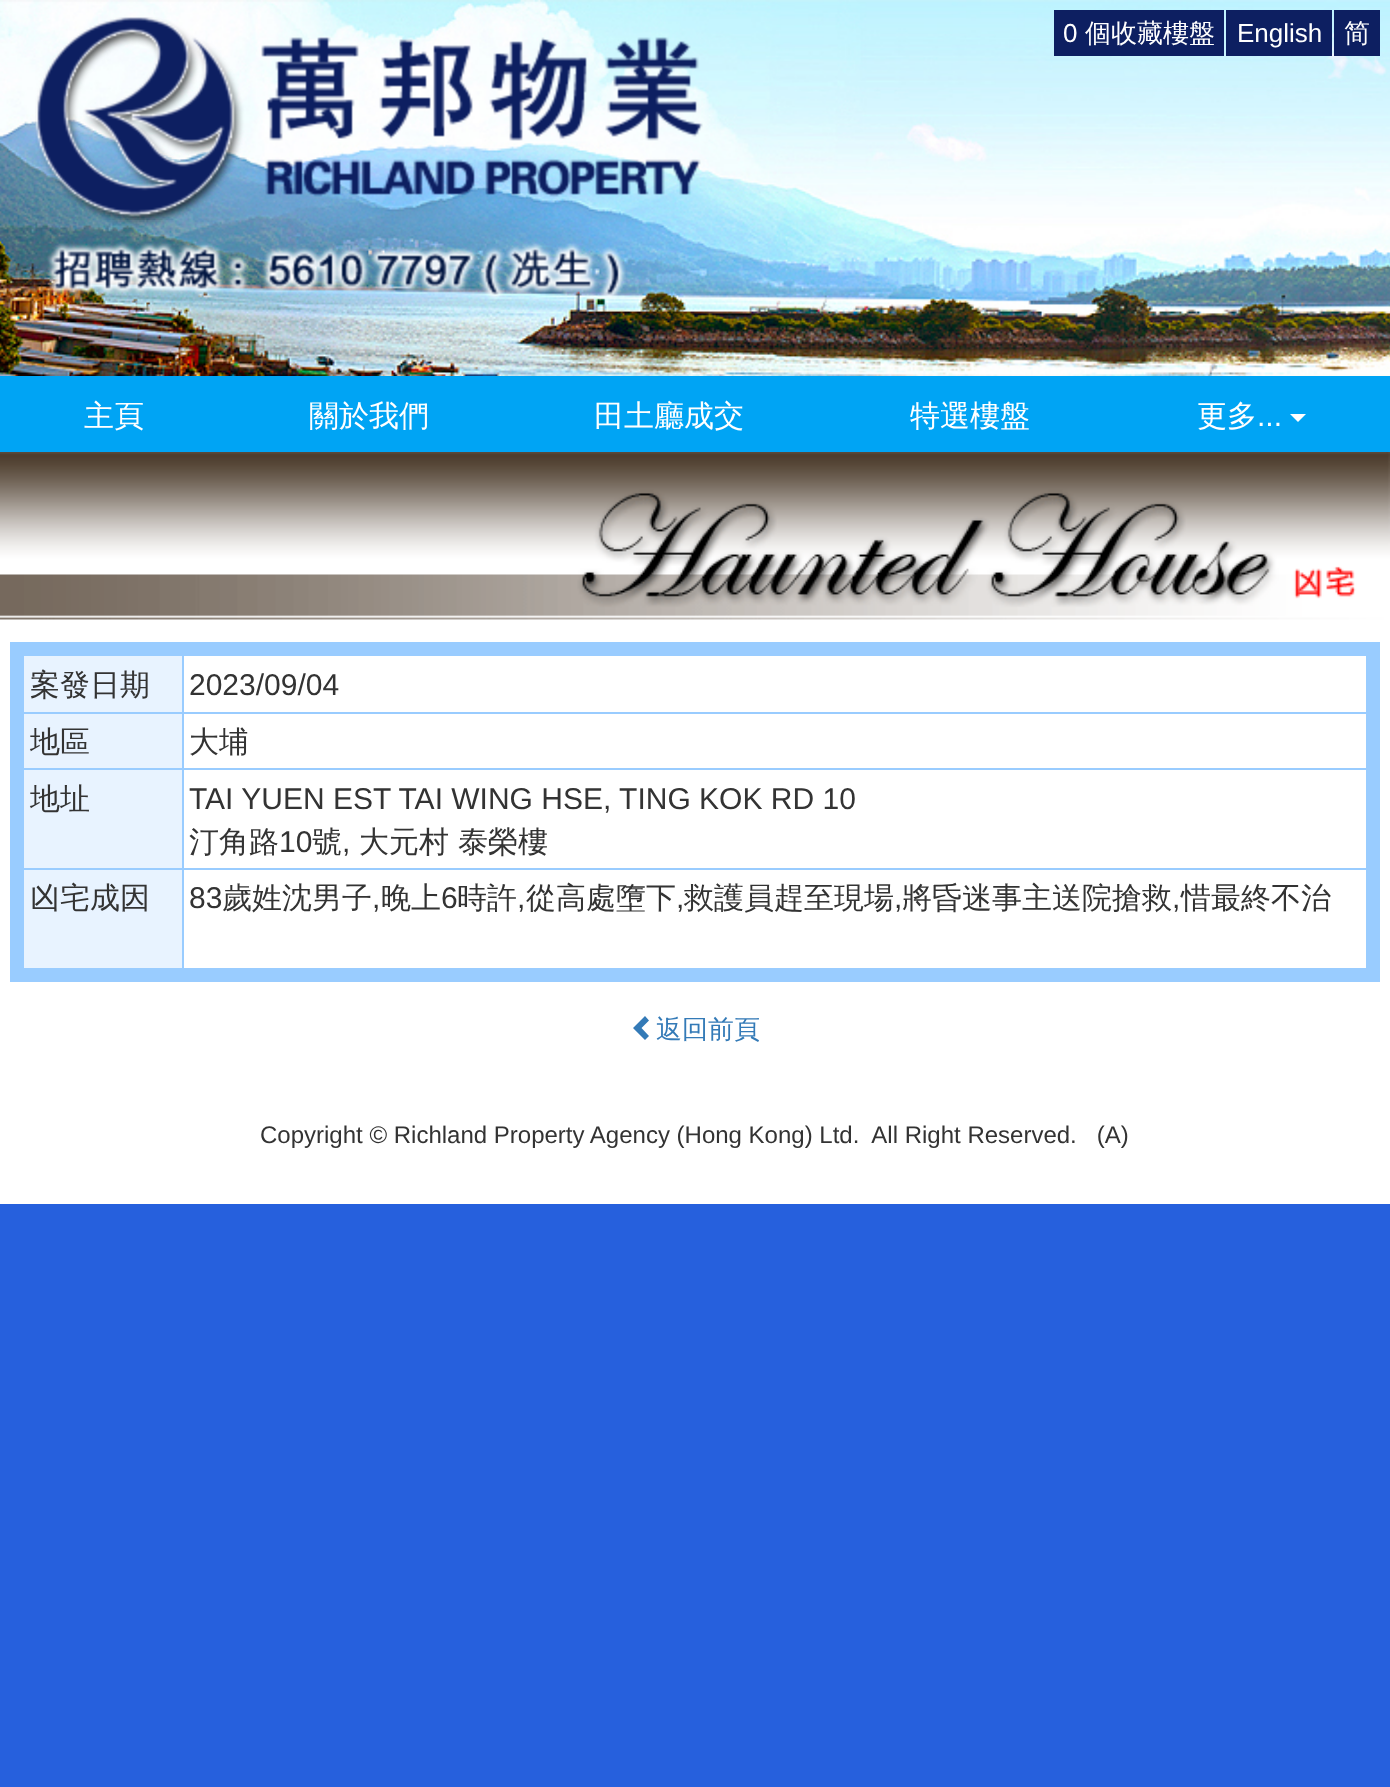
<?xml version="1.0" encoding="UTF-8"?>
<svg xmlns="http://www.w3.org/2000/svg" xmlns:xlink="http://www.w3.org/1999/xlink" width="1390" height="1787">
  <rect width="100%" height="100%" fill="#2660dd" />
  <rect y="632" width="1390" height="572" fill="#ffffff" />
  <image x="0" y="0" width="1390" height="376" xlink:href="image1.png" />
  <image x="35" y="17" width="668" height="203" xlink:href="image2.png" />
  <image x="46" y="220" width="580" height="81" xlink:href="image3.png" />
  <rect x="1054" y="10" width="170" height="46" fill="#0d1f61" />
  <rect x="1226" y="10" width="106" height="46" fill="#0d1f61" />
  <rect x="1334" y="10" width="46" height="46" fill="#0d1f61" />
  <rect y="376" width="1390" height="76" fill="#00a4f4" />
  <path d="M 1290 414 h 16 l -8 8 z" fill="#ffffff" />
  <image x="0" y="452" width="1390" height="180" xlink:href="image4.png" />
  <rect x="1370" y="642" width="10" height="330" fill="#99ccff" />
  <rect x="20" y="972" width="1360" height="10" fill="#99ccff" />
  <rect x="10" y="642" width="10" height="340" fill="#99ccff" />
  <rect x="24" y="656" width="158" height="312" fill="#e8f3ff" />
  <rect x="182" y="712" width="1188" height="2" fill="#99ccff" />
  <rect x="182" y="768" width="1188" height="2" fill="#99ccff" />
  <rect x="182" y="868" width="1188" height="2" fill="#99ccff" />
  <rect x="182" y="868" width="2" height="104" fill="#99ccff" />
  <rect x="22" y="868" width="162" height="2" fill="#99ccff" />
  <rect x="182" y="768" width="2" height="102" fill="#99ccff" />
  <rect x="22" y="768" width="162" height="2" fill="#99ccff" />
  <rect x="182" y="712" width="2" height="58" fill="#99ccff" />
  <rect x="22" y="712" width="162" height="2" fill="#99ccff" />
  <rect x="182" y="654" width="2" height="60" fill="#99ccff" />
  <rect x="20" y="642" width="1350" height="14" fill="#99ccff" />
  <rect x="1366" y="652" width="4" height="320" fill="#99ccff" />
  <rect x="20" y="968" width="1350" height="4" fill="#99ccff" />
  <rect x="20" y="652" width="4" height="320" fill="#99ccff" />
  <path d="M 649 1020.5 l -7.5 7.5 l 7.5 8 l -4 4 l -12 -12 l 12 -12 z" fill="#337ab7" />
  <text x="1063" y="42" style="font-family: Liberation Sans; font-size: 26px; fill: #ffffff">0</text>
  <text x="1085" y="42" style="font-family: WenQuanYi Zen Hei; font-size: 26px; font-weight: 500; fill: #ffffff">個收藏樓盤</text>
  <text x="1237" y="42" style="font-family: Liberation Sans; font-size: 26px; fill: #ffffff">English</text>
  <text x="1344" y="42" style="font-family: WenQuanYi Zen Hei; font-size: 26px; font-weight: 500; fill: #ffffff">简</text>
  <text x="84" y="426" style="font-family: WenQuanYi Zen Hei; font-size: 30px; font-weight: 500; fill: #ffffff">主頁</text>
  <text x="309" y="426" style="font-family: WenQuanYi Zen Hei; font-size: 30px; font-weight: 500; fill: #ffffff">關於我們</text>
  <text x="594" y="426" style="font-family: WenQuanYi Zen Hei; font-size: 30px; font-weight: 500; fill: #ffffff">田土廳成交</text>
  <text x="910" y="426" style="font-family: WenQuanYi Zen Hei; font-size: 30px; font-weight: 500; fill: #ffffff">特選樓盤</text>
  <text x="1197" y="426" style="font-family: WenQuanYi Zen Hei; font-size: 30px; font-weight: 500; fill: #ffffff">更多</text>
  <text x="1257" y="426" style="font-family: Liberation Sans; font-size: 30px; fill: #ffffff">...</text>
  <text x="30" y="695" style="font-family: WenQuanYi Zen Hei; font-size: 30px; font-weight: 500; fill: #333333">案發日期</text>
  <text x="189" y="695" style="font-family: Liberation Sans; font-size: 30px; fill: #333333">2023/09/04</text>
  <text x="30" y="752" style="font-family: WenQuanYi Zen Hei; font-size: 30px; font-weight: 500; fill: #333333">地區</text>
  <text x="189" y="752" style="font-family: WenQuanYi Zen Hei; font-size: 30px; font-weight: 500; fill: #333333">大埔</text>
  <text x="30" y="809" style="font-family: WenQuanYi Zen Hei; font-size: 30px; font-weight: 500; fill: #333333">地址</text>
  <text x="189" y="809" style="font-family: Liberation Sans; font-size: 30px; fill: #333333">TAI YUEN EST TAI WING HSE, TING KOK RD 10</text>
  <text x="189" y="852" style="font-family: WenQuanYi Zen Hei; font-size: 30px; font-weight: 500; fill: #333333">汀角路</text>
  <text x="279" y="852" style="font-family: Liberation Sans; font-size: 30px; fill: #333333">10</text>
  <text x="312" y="852" style="font-family: WenQuanYi Zen Hei; font-size: 30px; font-weight: 500; fill: #333333">號</text>
  <text x="342" y="852" style="font-family: Liberation Sans; font-size: 30px; fill: #333333">,</text>
  <text x="359" y="852" style="font-family: WenQuanYi Zen Hei; font-size: 30px; font-weight: 500; fill: #333333">大元村 泰榮樓</text>
  <text x="30" y="908" style="font-family: WenQuanYi Zen Hei; font-size: 30px; font-weight: 500; fill: #333333">凶宅成因</text>
  <text x="189" y="908" style="font-family: Liberation Sans; font-size: 30px; fill: #333333">83</text>
  <text x="222" y="908" style="font-family: WenQuanYi Zen Hei; font-size: 30px; font-weight: 500; fill: #333333">歲姓沈男子</text>
  <text x="372" y="908" style="font-family: Liberation Sans; font-size: 30px; fill: #333333">,</text>
  <text x="381" y="908" style="font-family: WenQuanYi Zen Hei; font-size: 30px; font-weight: 500; fill: #333333">晚上</text>
  <text x="441" y="908" style="font-family: Liberation Sans; font-size: 30px; fill: #333333">6</text>
  <text x="457" y="908" style="font-family: WenQuanYi Zen Hei; font-size: 30px; font-weight: 500; fill: #333333">時許</text>
  <text x="517" y="908" style="font-family: Liberation Sans; font-size: 30px; fill: #333333">,</text>
  <text x="526" y="908" style="font-family: WenQuanYi Zen Hei; font-size: 30px; font-weight: 500; fill: #333333">從高處墮下</text>
  <text x="676" y="908" style="font-family: Liberation Sans; font-size: 30px; fill: #333333">,</text>
  <text x="684" y="908" style="font-family: WenQuanYi Zen Hei; font-size: 30px; font-weight: 500; fill: #333333">救護員趕至現場</text>
  <text x="894" y="908" style="font-family: Liberation Sans; font-size: 30px; fill: #333333">,</text>
  <text x="902" y="908" style="font-family: WenQuanYi Zen Hei; font-size: 30px; font-weight: 500; fill: #333333">將昏迷事主送院搶救</text>
  <text x="1172" y="908" style="font-family: Liberation Sans; font-size: 30px; fill: #333333">,</text>
  <text x="1181" y="908" style="font-family: WenQuanYi Zen Hei; font-size: 30px; font-weight: 500; fill: #333333">惜最終不治</text>
  <text x="656" y="1038" style="font-family: WenQuanYi Zen Hei; font-size: 26px; font-weight: 500; fill: #337ab7">返回前頁</text>
  <text x="260" y="1143" style="font-family: Liberation Sans; font-size: 24px; fill: #333333" xml:space="preserve">Copyright © Richland Property Agency (Hong Kong) Ltd.  All Right Reserved.   (A)</text>
</svg>
